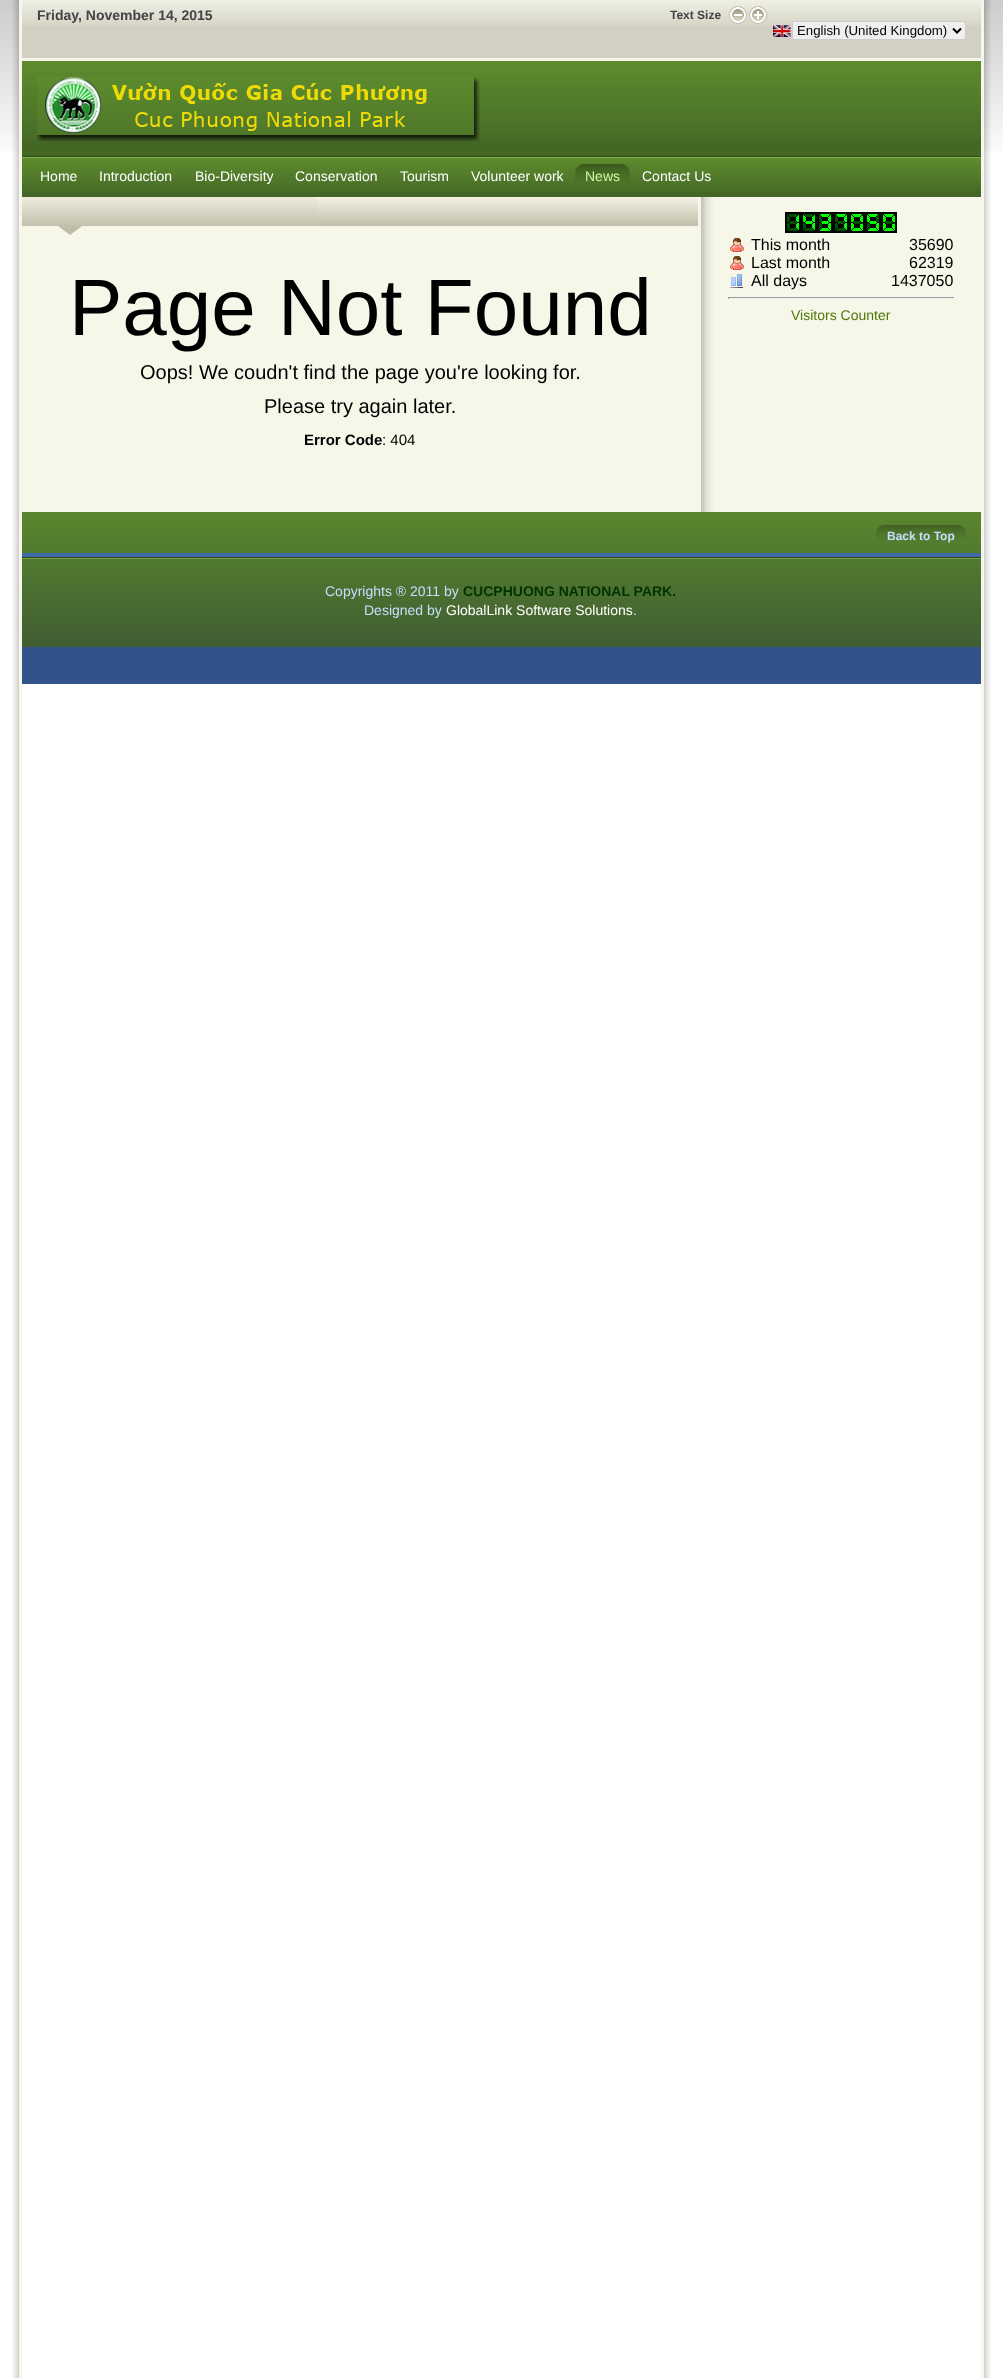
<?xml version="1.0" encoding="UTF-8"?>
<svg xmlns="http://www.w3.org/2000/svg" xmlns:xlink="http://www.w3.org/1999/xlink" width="1003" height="2378">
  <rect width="100%" height="100%" fill="#ffffff" />
  <image x="0" y="0" width="1003" height="151" xlink:href="image1.png" />
  <image x="12" y="0" width="10" height="2378" xlink:href="image2.png" />
  <image x="981" y="0" width="10" height="2378" xlink:href="image3.png" />
  <rect x="22" y="26" width="959" height="32" fill="#d2d0c2" />
  <image x="22" y="0" width="959" height="26" xlink:href="image4.png" />
  <image x="729" y="6" width="18" height="18" xlink:href="image5.png" />
  <image x="749" y="6" width="18" height="18" xlink:href="image6.png" />
  <image x="773" y="25" width="18" height="12" xlink:href="image7.png" />
  <rect x="792.5" y="21.5" width="173" height="18" fill="#efefef" stroke="#cccccc" />
  <path d="M 953 28.5 l 4 4 l 4 -4" fill="none" stroke="#000000" stroke-width="2" />
  <rect x="22" y="140" width="959" height="16" fill="#456726" />
  <image x="22" y="61" width="959" height="79" xlink:href="image8.png" />
  <rect x="22" y="58" width="959" height="3" fill="#f6f6e9" />
  <image x="37" y="77" width="443" height="64" xlink:href="image9.png" />
  <rect x="22" y="192" width="959" height="5" fill="#446626" />
  <image x="22" y="156" width="959" height="36" xlink:href="image10.png" />
  <image x="575" y="164" width="55" height="17" xlink:href="image11.png" />
  <image x="575" y="164" width="8" height="7" xlink:href="image12.png" />
  <rect x="22" y="197" width="959" height="315" fill="#f6f6e9" />
  <image x="701" y="197" width="12" height="315" xlink:href="image13.png" />
  <image x="22" y="197" width="676" height="38" xlink:href="image14.png" />
  <image x="785" y="212" width="16" height="21" xlink:href="image15.png" />
  <image x="801" y="212" width="16" height="21" xlink:href="image16.png" />
  <image x="817" y="212" width="16" height="21" xlink:href="image17.png" />
  <image x="833" y="212" width="16" height="21" xlink:href="image18.png" />
  <image x="849" y="212" width="16" height="21" xlink:href="image19.png" />
  <image x="865" y="212" width="16" height="21" xlink:href="image20.png" />
  <image x="881" y="212" width="16" height="21" xlink:href="image19.png" />
  <image x="730" y="238" width="14" height="14" xlink:href="image21.png" />
  <image x="730" y="256" width="14" height="14" xlink:href="image21.png" />
  <image x="730" y="274" width="13" height="14" xlink:href="image22.png" />
  <rect x="728" y="297" width="227" height="1" fill="#9f9f9f" />
  <rect x="954" y="297" width="1" height="2" fill="#eeeeee" />
  <rect x="728" y="298" width="227" height="1" fill="#eeeeee" />
  <rect x="728" y="297" width="1" height="2" fill="#9f9f9f" />
  <rect x="22" y="553" width="959" height="4" fill="#416aa9" />
  <image x="22" y="512" width="959" height="41" xlink:href="image23.png" />
  <image x="876" y="525" width="90" height="14" xlink:href="image24.png" />
  <rect x="22" y="647" width="959" height="37" fill="#32538a" />
  <image x="22" y="557" width="959" height="90" xlink:href="image25.png" />
  <text x="37" y="20" style="font-family: Liberation Sans; font-size: 14px; font-weight: bold; fill: #444444">Friday</text>
  <text x="78" y="20" style="font-family: Liberation Sans; font-size: 14px; font-weight: bold; fill: #444444">, November 14, 2015</text>
  <text x="670" y="19" style="font-family: Liberation Sans; font-size: 12px; font-weight: bold; fill: #444444">Text Size</text>
  <text x="797" y="35" style="font-family: Liberation Sans; font-size: 13.25px; fill: #000000">English (United Kingdom)</text>
  <text x="40" y="181" style="font-family: Liberation Sans; font-size: 14px; fill: #ffffff">Home</text>
  <text x="99" y="181" style="font-family: Liberation Sans; font-size: 14px; fill: #ffffff">Introduction</text>
  <text x="195" y="181" style="font-family: Liberation Sans; font-size: 14px; fill: #ffffff">Bio-Diversity</text>
  <text x="295" y="181" style="font-family: Liberation Sans; font-size: 14px; fill: #ffffff">Conservation</text>
  <text x="400" y="181" style="font-family: Liberation Sans; font-size: 14px; fill: #ffffff">Tourism</text>
  <text x="471" y="181" style="font-family: Liberation Sans; font-size: 14px; fill: #ffffff">Volunteer work</text>
  <text x="585" y="181" style="font-family: Liberation Sans; font-size: 14px; fill: #d1f7ad">News</text>
  <text x="642" y="181" style="font-family: Liberation Sans; font-size: 14px; fill: #ffffff">Contact Us</text>
  <text x="69" y="335" style="font-family: Liberation Sans; font-size: 80px; fill: #000000">Page Not Found</text>
  <text x="140" y="379" style="font-family: Liberation Sans; font-size: 20px; fill: #000000">Oops! We coudn't find the page you're looking for.</text>
  <text x="264" y="413" style="font-family: Liberation Sans; font-size: 20px; fill: #000000">Please try again later.</text>
  <text x="304" y="445" style="font-family: Liberation Sans; font-size: 15px; font-weight: bold; fill: #000000">Error Code</text>
  <text x="382" y="445" style="font-family: Liberation Sans; font-size: 15px; fill: #000000">: 404</text>
  <text x="751" y="250" style="font-family: Liberation Sans; font-size: 16px; fill: #000000">This month</text>
  <text x="909" y="250" style="font-family: Liberation Sans; font-size: 16px; fill: #000000">35690</text>
  <text x="751" y="268" style="font-family: Liberation Sans; font-size: 16px; fill: #000000">Last month</text>
  <text x="909" y="268" style="font-family: Liberation Sans; font-size: 16px; fill: #000000">62319</text>
  <text x="751" y="286" style="font-family: Liberation Sans; font-size: 16px; fill: #000000">All days</text>
  <text x="891" y="286" style="font-family: Liberation Sans; font-size: 16px; fill: #000000">1437050</text>
  <text x="791" y="320" style="font-family: Liberation Sans; font-size: 14px; fill: #4e7805">Visitors Counter</text>
  <text x="887" y="540" style="font-family: Liberation Sans; font-size: 12px; font-weight: bold; fill: #c6dfff">Back to Top</text>
  <text x="325" y="596" style="font-family: Liberation Sans; font-size: 14px; fill: #c6dfff">Copyrights ® 2011 by</text>
  <text x="463" y="596" style="font-family: Liberation Sans; font-size: 14px; font-weight: bold; fill: #003300">CUCPHUONG NATIONAL PARK.</text>
  <text x="364" y="615" style="font-family: Liberation Sans; font-size: 14px; fill: #c6dfff">Designed by</text>
  <text x="446" y="615" style="font-family: Liberation Sans; font-size: 14px; fill: #ffffff">GlobalLink Software Solutions</text>
  <text x="633" y="615" style="font-family: Liberation Sans; font-size: 14px; fill: #c6dfff">.</text>
</svg>
